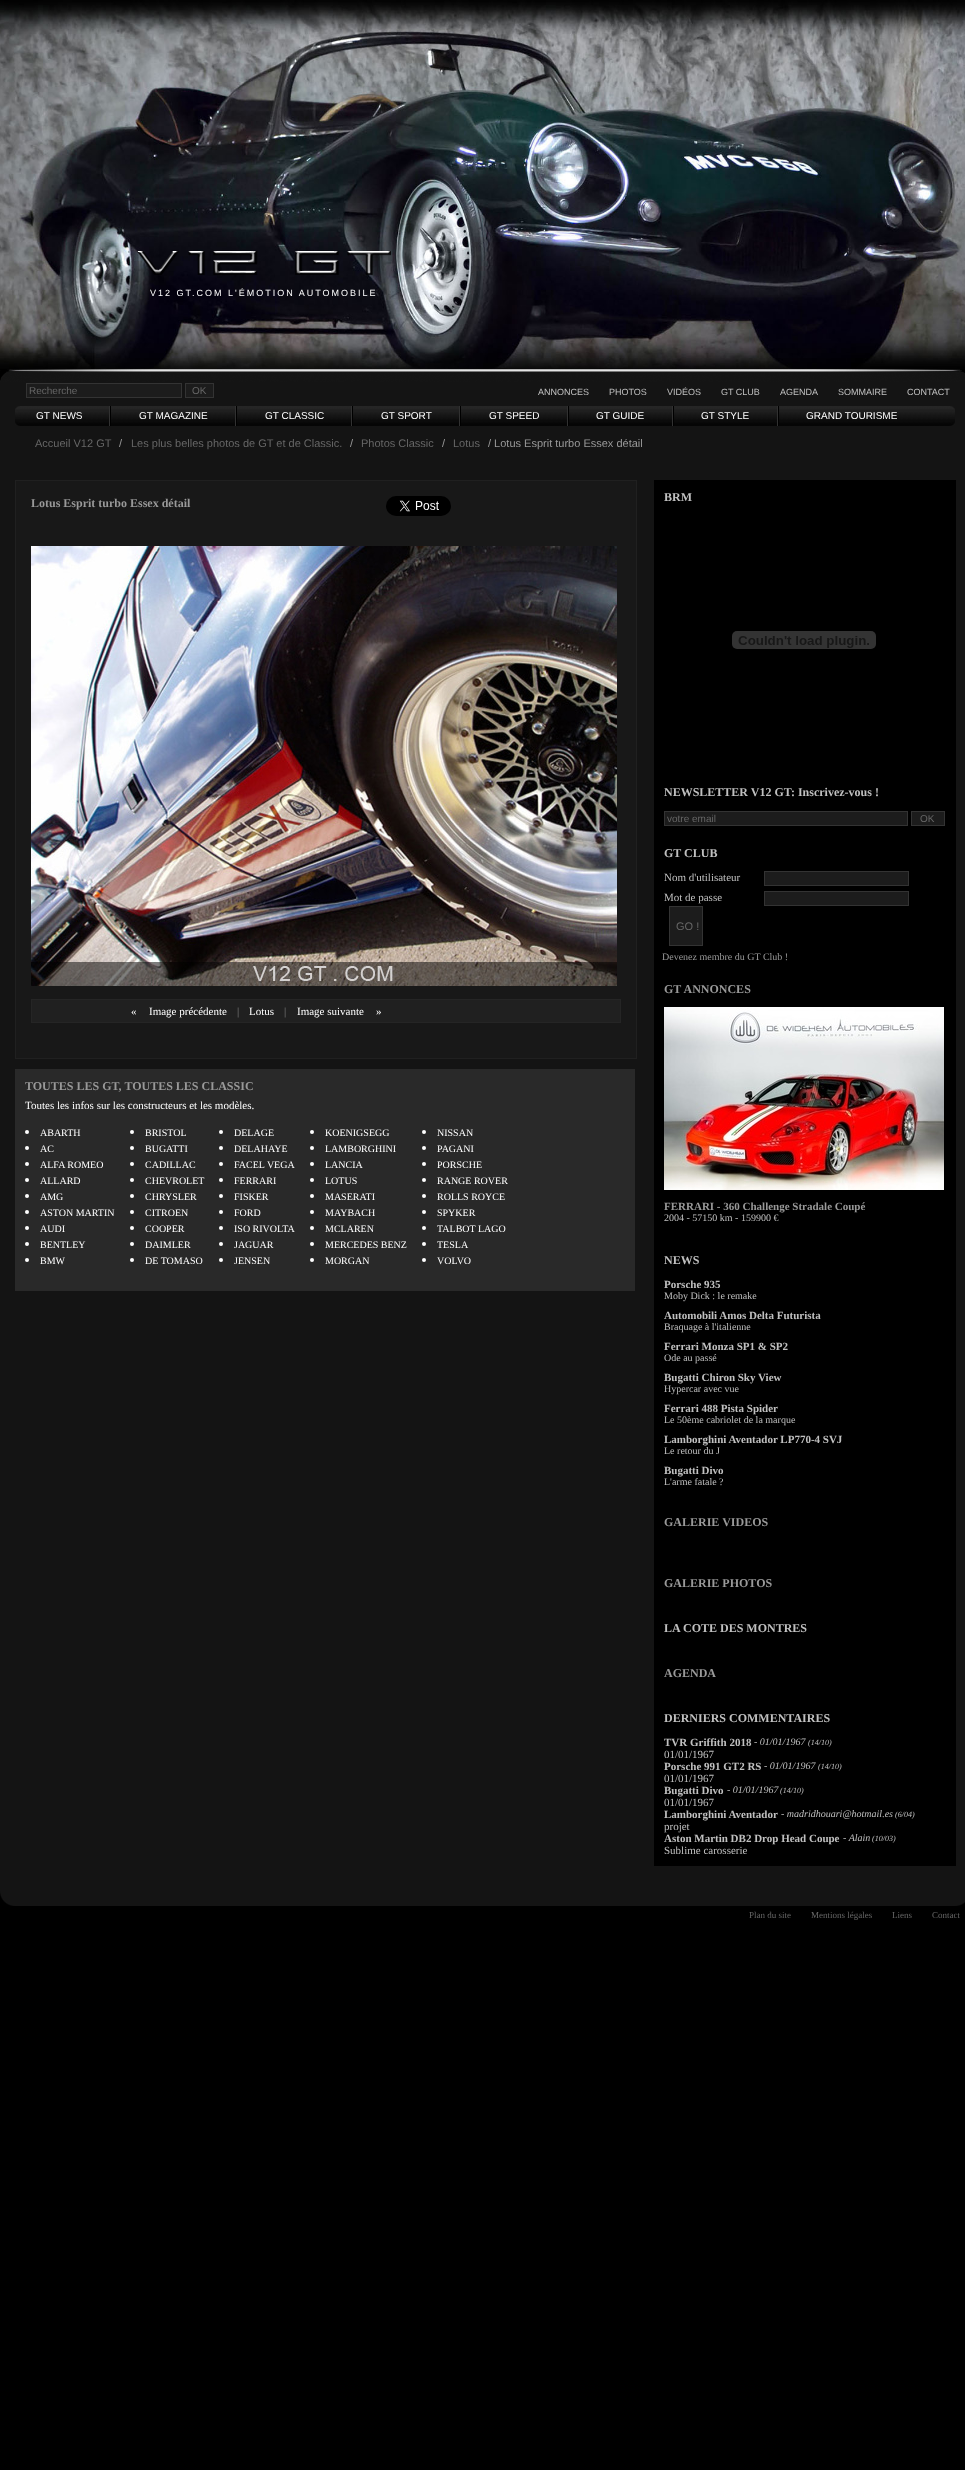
<?xml version="1.0" encoding="UTF-8"?>
<svg xmlns="http://www.w3.org/2000/svg" xmlns:xlink="http://www.w3.org/1999/xlink" width="965" height="2470">
  <rect width="100%" height="100%" fill="#000000" />
  <image x="0" y="0" width="965" height="369" xlink:href="image1.png" />
  <image x="137" y="251" width="254" height="24" xlink:href="image2.png" />
  <image x="0" y="369" width="965" height="13" xlink:href="image3.png" />
  <rect y="382" width="965" height="1509" fill="#141414" />
  <rect x="26.5" y="383.5" width="155" height="14" fill="#1c1c1c" stroke="#333333" />
  <rect x="185.5" y="383.5" width="28" height="14" fill="#1c1c1c" stroke="#333333" />
  <image x="15" y="406" width="5" height="20" xlink:href="image4.png" />
  <image x="20" y="406" width="930" height="20" xlink:href="image5.png" />
  <image x="109" y="406" width="2" height="20" xlink:href="image6.png" />
  <image x="235" y="406" width="2" height="20" xlink:href="image6.png" />
  <image x="351" y="406" width="2" height="20" xlink:href="image6.png" />
  <image x="459" y="406" width="2" height="20" xlink:href="image6.png" />
  <image x="567" y="406" width="2" height="20" xlink:href="image6.png" />
  <image x="672" y="406" width="2" height="20" xlink:href="image6.png" />
  <image x="777" y="406" width="2" height="20" xlink:href="image6.png" />
  <image x="950" y="406" width="5" height="20" xlink:href="image7.png" />
  <rect x="15.5" y="480.5" width="621" height="578" fill="#181818" stroke="#202020" />
  <image x="386" y="496" width="65" height="20" xlink:href="image8.png" />
  <image x="31" y="546" width="586" height="440" xlink:href="image9.png" />
  <rect x="31.5" y="999.5" width="589" height="23" fill="#202020" stroke="#252525" />
  <rect x="15" y="1069" width="620" height="222" fill="#292929" />
  <circle cx="27" cy="1132" r="2" fill="#ffffff" />
  <circle cx="27" cy="1148" r="2" fill="#ffffff" />
  <circle cx="27" cy="1164" r="2" fill="#ffffff" />
  <circle cx="27" cy="1180" r="2" fill="#ffffff" />
  <circle cx="27" cy="1196" r="2" fill="#ffffff" />
  <circle cx="27" cy="1212" r="2" fill="#ffffff" />
  <circle cx="27" cy="1228" r="2" fill="#ffffff" />
  <circle cx="27" cy="1244" r="2" fill="#ffffff" />
  <circle cx="27" cy="1260" r="2" fill="#ffffff" />
  <circle cx="132" cy="1132" r="2" fill="#ffffff" />
  <circle cx="132" cy="1148" r="2" fill="#ffffff" />
  <circle cx="132" cy="1164" r="2" fill="#ffffff" />
  <circle cx="132" cy="1180" r="2" fill="#ffffff" />
  <circle cx="132" cy="1196" r="2" fill="#ffffff" />
  <circle cx="132" cy="1212" r="2" fill="#ffffff" />
  <circle cx="132" cy="1228" r="2" fill="#ffffff" />
  <circle cx="132" cy="1244" r="2" fill="#ffffff" />
  <circle cx="132" cy="1260" r="2" fill="#ffffff" />
  <circle cx="221" cy="1132" r="2" fill="#ffffff" />
  <circle cx="221" cy="1148" r="2" fill="#ffffff" />
  <circle cx="221" cy="1164" r="2" fill="#ffffff" />
  <circle cx="221" cy="1180" r="2" fill="#ffffff" />
  <circle cx="221" cy="1196" r="2" fill="#ffffff" />
  <circle cx="221" cy="1212" r="2" fill="#ffffff" />
  <circle cx="221" cy="1228" r="2" fill="#ffffff" />
  <circle cx="221" cy="1244" r="2" fill="#ffffff" />
  <circle cx="221" cy="1260" r="2" fill="#ffffff" />
  <circle cx="312" cy="1132" r="2" fill="#ffffff" />
  <circle cx="312" cy="1148" r="2" fill="#ffffff" />
  <circle cx="312" cy="1164" r="2" fill="#ffffff" />
  <circle cx="312" cy="1180" r="2" fill="#ffffff" />
  <circle cx="312" cy="1196" r="2" fill="#ffffff" />
  <circle cx="312" cy="1212" r="2" fill="#ffffff" />
  <circle cx="312" cy="1228" r="2" fill="#ffffff" />
  <circle cx="312" cy="1244" r="2" fill="#ffffff" />
  <circle cx="312" cy="1260" r="2" fill="#ffffff" />
  <circle cx="424" cy="1132" r="2" fill="#ffffff" />
  <circle cx="424" cy="1148" r="2" fill="#ffffff" />
  <circle cx="424" cy="1164" r="2" fill="#ffffff" />
  <circle cx="424" cy="1180" r="2" fill="#ffffff" />
  <circle cx="424" cy="1196" r="2" fill="#ffffff" />
  <circle cx="424" cy="1212" r="2" fill="#ffffff" />
  <circle cx="424" cy="1228" r="2" fill="#ffffff" />
  <circle cx="424" cy="1244" r="2" fill="#ffffff" />
  <circle cx="424" cy="1260" r="2" fill="#ffffff" />
  <rect x="654" y="480" width="302" height="1386" fill="#000000" />
  <image x="732" y="631" width="144" height="18" xlink:href="image10.png" />
  <rect x="664.5" y="811.5" width="243" height="14" fill="#1c1c1c" stroke="#333333" />
  <rect x="911.5" y="811.5" width="33" height="14" fill="#1c1c1c" stroke="#333333" />
  <rect x="764.5" y="871.5" width="144" height="14" fill="#1c1c1c" stroke="#333333" />
  <rect x="764.5" y="891.5" width="144" height="14" fill="#1c1c1c" stroke="#333333" />
  <rect x="669.5" y="906.5" width="33" height="39" fill="#1c1c1c" stroke="#333333" />
  <image x="664" y="1007" width="280" height="183" xlink:href="image11.png" />
  <image x="0" y="1891" width="965" height="15" xlink:href="image12.png" />
  <text x="150" y="296" style="font-family: Liberation Sans; font-size: 9px; letter-spacing: 2px; fill: #ffffff">V12 GT.COM L'ÉMOTION AUTOMOBILE</text>
  <text x="29" y="394" style="font-family: Liberation Sans; font-size: 10px; fill: #666666">Recherche</text>
  <text x="192" y="394" style="font-family: Liberation Sans; font-size: 10px; fill: #666666">OK</text>
  <text x="538" y="395" style="font-family: Liberation Sans; font-size: 9px; fill: #c0c0c0">ANNONCES</text>
  <text x="609" y="395" style="font-family: Liberation Sans; font-size: 9px; fill: #c0c0c0">PHOTOS</text>
  <text x="667" y="395" style="font-family: Liberation Sans; font-size: 9px; fill: #c0c0c0">VIDÉOS</text>
  <text x="721" y="395" style="font-family: Liberation Sans; font-size: 9px; fill: #c0c0c0">GT CLUB</text>
  <text x="780" y="395" style="font-family: Liberation Sans; font-size: 9px; fill: #c0c0c0">AGENDA</text>
  <text x="838" y="395" style="font-family: Liberation Sans; font-size: 9px; fill: #c0c0c0">SOMMAIRE</text>
  <text x="907" y="395" style="font-family: Liberation Sans; font-size: 9px; fill: #c0c0c0">CONTACT</text>
  <text x="36" y="419" style="font-family: Liberation Sans; font-size: 10px; fill: #ffffff">GT NEWS</text>
  <text x="139" y="419" style="font-family: Liberation Sans; font-size: 10px; fill: #ffffff">GT MAGAZINE</text>
  <text x="265" y="419" style="font-family: Liberation Sans; font-size: 10px; fill: #ffffff">GT CLASSIC</text>
  <text x="381" y="419" style="font-family: Liberation Sans; font-size: 10px; fill: #ffffff">GT SPORT</text>
  <text x="489" y="419" style="font-family: Liberation Sans; font-size: 10px; fill: #ffffff">GT SPEED</text>
  <text x="596" y="419" style="font-family: Liberation Sans; font-size: 10px; fill: #ffffff">GT GUIDE</text>
  <text x="701" y="419" style="font-family: Liberation Sans; font-size: 10px; fill: #ffffff">GT STYLE</text>
  <text x="806" y="419" style="font-family: Liberation Sans; font-size: 10px; fill: #ffffff">GRAND TOURISME</text>
  <text x="35" y="447" style="font-family: Liberation Sans; font-size: 11px; fill: #666666">Accueil V12 GT</text>
  <text x="119" y="447" style="font-family: Liberation Sans; font-size: 11px; fill: #999999">/</text>
  <text x="131" y="447" style="font-family: Liberation Sans; font-size: 11px; fill: #666666">Les plus belles photos de GT et de Classic.</text>
  <text x="350" y="447" style="font-family: Liberation Sans; font-size: 11px; fill: #999999">/</text>
  <text x="361" y="447" style="font-family: Liberation Sans; font-size: 11px; fill: #666666">Photos Classic</text>
  <text x="442" y="447" style="font-family: Liberation Sans; font-size: 11px; fill: #999999">/</text>
  <text x="453" y="447" style="font-family: Liberation Sans; font-size: 11px; fill: #666666">Lotus</text>
  <text x="488" y="447" style="font-family: Liberation Sans; font-size: 11px; fill: #999999">/ Lotus Esprit turbo Essex détail</text>
  <text x="31" y="507" style="font-family: Liberation Serif; font-size: 12px; font-weight: bold; fill: #999999">Lotus Esprit turbo Essex détail</text>
  <text x="131" y="1015" style="font-family: Liberation Serif; font-size: 11px; fill: #ffffff">«</text>
  <text x="149" y="1015" style="font-family: Liberation Serif; font-size: 11px; fill: #ffffff">Image précédente</text>
  <text x="237" y="1015" style="font-family: Liberation Serif; font-size: 11px; fill: #808080">|</text>
  <text x="249" y="1015" style="font-family: Liberation Serif; font-size: 11px; fill: #ffffff">Lotus</text>
  <text x="284" y="1015" style="font-family: Liberation Serif; font-size: 11px; fill: #808080">|</text>
  <text x="297" y="1015" style="font-family: Liberation Serif; font-size: 11px; fill: #ffffff">Image suivante</text>
  <text x="376" y="1015" style="font-family: Liberation Serif; font-size: 11px; fill: #ffffff">»</text>
  <text x="25" y="1090" style="font-family: Liberation Serif; font-size: 12px; font-weight: bold; fill: #999999">TOUTES LES GT, TOUTES LES CLASSIC</text>
  <text x="25" y="1109" style="font-family: Liberation Serif; font-size: 11px; fill: #ffffff">Toutes les infos sur les constructeurs et les modèles.</text>
  <text x="40" y="1136" style="font-family: Liberation Serif; font-size: 10px; fill: #ffffff">ABARTH</text>
  <text x="40" y="1152" style="font-family: Liberation Serif; font-size: 10px; fill: #ffffff">AC</text>
  <text x="40" y="1168" style="font-family: Liberation Serif; font-size: 10px; fill: #ffffff">ALFA ROMEO</text>
  <text x="40" y="1184" style="font-family: Liberation Serif; font-size: 10px; fill: #ffffff">ALLARD</text>
  <text x="40" y="1200" style="font-family: Liberation Serif; font-size: 10px; fill: #ffffff">AMG</text>
  <text x="40" y="1216" style="font-family: Liberation Serif; font-size: 10px; fill: #ffffff">ASTON MARTIN</text>
  <text x="40" y="1232" style="font-family: Liberation Serif; font-size: 10px; fill: #ffffff">AUDI</text>
  <text x="40" y="1248" style="font-family: Liberation Serif; font-size: 10px; fill: #ffffff">BENTLEY</text>
  <text x="40" y="1264" style="font-family: Liberation Serif; font-size: 10px; fill: #ffffff">BMW</text>
  <text x="145" y="1136" style="font-family: Liberation Serif; font-size: 10px; fill: #ffffff">BRISTOL</text>
  <text x="145" y="1152" style="font-family: Liberation Serif; font-size: 10px; fill: #ffffff">BUGATTI</text>
  <text x="145" y="1168" style="font-family: Liberation Serif; font-size: 10px; fill: #ffffff">CADILLAC</text>
  <text x="145" y="1184" style="font-family: Liberation Serif; font-size: 10px; fill: #ffffff">CHEVROLET</text>
  <text x="145" y="1200" style="font-family: Liberation Serif; font-size: 10px; fill: #ffffff">CHRYSLER</text>
  <text x="145" y="1216" style="font-family: Liberation Serif; font-size: 10px; fill: #ffffff">CITROEN</text>
  <text x="145" y="1232" style="font-family: Liberation Serif; font-size: 10px; fill: #ffffff">COOPER</text>
  <text x="145" y="1248" style="font-family: Liberation Serif; font-size: 10px; fill: #ffffff">DAIMLER</text>
  <text x="145" y="1264" style="font-family: Liberation Serif; font-size: 10px; fill: #ffffff">DE TOMASO</text>
  <text x="234" y="1136" style="font-family: Liberation Serif; font-size: 10px; fill: #ffffff">DELAGE</text>
  <text x="234" y="1152" style="font-family: Liberation Serif; font-size: 10px; fill: #ffffff">DELAHAYE</text>
  <text x="234" y="1168" style="font-family: Liberation Serif; font-size: 10px; fill: #ffffff">FACEL VEGA</text>
  <text x="234" y="1184" style="font-family: Liberation Serif; font-size: 10px; fill: #ffffff">FERRARI</text>
  <text x="234" y="1200" style="font-family: Liberation Serif; font-size: 10px; fill: #ffffff">FISKER</text>
  <text x="234" y="1216" style="font-family: Liberation Serif; font-size: 10px; fill: #ffffff">FORD</text>
  <text x="234" y="1232" style="font-family: Liberation Serif; font-size: 10px; fill: #ffffff">ISO RIVOLTA</text>
  <text x="234" y="1248" style="font-family: Liberation Serif; font-size: 10px; fill: #ffffff">JAGUAR</text>
  <text x="234" y="1264" style="font-family: Liberation Serif; font-size: 10px; fill: #ffffff">JENSEN</text>
  <text x="325" y="1136" style="font-family: Liberation Serif; font-size: 10px; fill: #ffffff">KOENIGSEGG</text>
  <text x="325" y="1152" style="font-family: Liberation Serif; font-size: 10px; fill: #ffffff">LAMBORGHINI</text>
  <text x="325" y="1168" style="font-family: Liberation Serif; font-size: 10px; fill: #ffffff">LANCIA</text>
  <text x="325" y="1184" style="font-family: Liberation Serif; font-size: 10px; fill: #ffffff">LOTUS</text>
  <text x="325" y="1200" style="font-family: Liberation Serif; font-size: 10px; fill: #ffffff">MASERATI</text>
  <text x="325" y="1216" style="font-family: Liberation Serif; font-size: 10px; fill: #ffffff">MAYBACH</text>
  <text x="325" y="1232" style="font-family: Liberation Serif; font-size: 10px; fill: #ffffff">MCLAREN</text>
  <text x="325" y="1248" style="font-family: Liberation Serif; font-size: 10px; fill: #ffffff">MERCEDES BENZ</text>
  <text x="325" y="1264" style="font-family: Liberation Serif; font-size: 10px; fill: #ffffff">MORGAN</text>
  <text x="437" y="1136" style="font-family: Liberation Serif; font-size: 10px; fill: #ffffff">NISSAN</text>
  <text x="437" y="1152" style="font-family: Liberation Serif; font-size: 10px; fill: #ffffff">PAGANI</text>
  <text x="437" y="1168" style="font-family: Liberation Serif; font-size: 10px; fill: #ffffff">PORSCHE</text>
  <text x="437" y="1184" style="font-family: Liberation Serif; font-size: 10px; fill: #ffffff">RANGE ROVER</text>
  <text x="437" y="1200" style="font-family: Liberation Serif; font-size: 10px; fill: #ffffff">ROLLS ROYCE</text>
  <text x="437" y="1216" style="font-family: Liberation Serif; font-size: 10px; fill: #ffffff">SPYKER</text>
  <text x="437" y="1232" style="font-family: Liberation Serif; font-size: 10px; fill: #ffffff">TALBOT LAGO</text>
  <text x="437" y="1248" style="font-family: Liberation Serif; font-size: 10px; fill: #ffffff">TESLA</text>
  <text x="437" y="1264" style="font-family: Liberation Serif; font-size: 10px; fill: #ffffff">VOLVO</text>
  <text x="664" y="501" style="font-family: Liberation Serif; font-size: 12px; font-weight: bold; fill: #c0c0c0">BRM</text>
  <text x="664" y="796" style="font-family: Liberation Serif; font-size: 12px; font-weight: bold; fill: #c0c0c0">NEWSLETTER V12 GT: Inscrivez-vous !</text>
  <text x="667" y="822" style="font-family: Liberation Sans; font-size: 10px; fill: #666666">votre email</text>
  <text x="920" y="822" style="font-family: Liberation Sans; font-size: 10px; fill: #666666">OK</text>
  <text x="664" y="857" style="font-family: Liberation Serif; font-size: 12px; font-weight: bold; fill: #c0c0c0">GT CLUB</text>
  <text x="664" y="881" style="font-family: Liberation Serif; font-size: 11px; fill: #c0c0c0">Nom d'utilisateur</text>
  <text x="664" y="901" style="font-family: Liberation Serif; font-size: 11px; fill: #c0c0c0">Mot de passe</text>
  <text x="676" y="930" style="font-family: Liberation Sans; font-size: 11px; fill: #666666">GO !</text>
  <text x="662" y="960" style="font-family: Liberation Serif; font-size: 10px; fill: #999999">Devenez membre du GT Club !</text>
  <text x="664" y="993" style="font-family: Liberation Serif; font-size: 12px; font-weight: bold; fill: #999999">GT ANNONCES</text>
  <text x="664" y="1210" style="font-family: Liberation Serif; font-size: 11px; font-weight: bold; fill: #999999">FERRARI - 360 Challenge Stradale Coupé</text>
  <text x="664" y="1221" style="font-family: Liberation Serif; font-size: 10px; fill: #c0c0c0">2004 - 57150 km - 159900 €</text>
  <text x="664" y="1264" style="font-family: Liberation Serif; font-size: 12px; font-weight: bold; fill: #c0c0c0">NEWS</text>
  <text x="664" y="1288" style="font-family: Liberation Serif; font-size: 11px; font-weight: bold; fill: #c0c0c0">Porsche 935</text>
  <text x="664" y="1299" style="font-family: Liberation Serif; font-size: 10px; fill: #c0c0c0">Moby Dick : le remake</text>
  <text x="664" y="1319" style="font-family: Liberation Serif; font-size: 11px; font-weight: bold; fill: #c0c0c0">Automobili Amos Delta Futurista</text>
  <text x="664" y="1330" style="font-family: Liberation Serif; font-size: 10px; fill: #c0c0c0">Braquage à l'italienne</text>
  <text x="664" y="1350" style="font-family: Liberation Serif; font-size: 11px; font-weight: bold; fill: #c0c0c0">Ferrari Monza SP1 &amp; SP2</text>
  <text x="664" y="1361" style="font-family: Liberation Serif; font-size: 10px; fill: #c0c0c0">Ode au passé</text>
  <text x="664" y="1381" style="font-family: Liberation Serif; font-size: 11px; font-weight: bold; fill: #c0c0c0">Bugatti Chiron Sky View</text>
  <text x="664" y="1392" style="font-family: Liberation Serif; font-size: 10px; fill: #c0c0c0">Hypercar avec vue</text>
  <text x="664" y="1412" style="font-family: Liberation Serif; font-size: 11px; font-weight: bold; fill: #c0c0c0">Ferrari 488 Pista Spider</text>
  <text x="664" y="1423" style="font-family: Liberation Serif; font-size: 10px; fill: #c0c0c0">Le 50ème cabriolet de la marque</text>
  <text x="664" y="1443" style="font-family: Liberation Serif; font-size: 11px; font-weight: bold; fill: #c0c0c0">Lamborghini Aventador LP770-4 SVJ</text>
  <text x="664" y="1454" style="font-family: Liberation Serif; font-size: 10px; fill: #c0c0c0">Le retour du J</text>
  <text x="664" y="1474" style="font-family: Liberation Serif; font-size: 11px; font-weight: bold; fill: #c0c0c0">Bugatti Divo</text>
  <text x="664" y="1485" style="font-family: Liberation Serif; font-size: 10px; fill: #c0c0c0">L'arme fatale ?</text>
  <text x="664" y="1526" style="font-family: Liberation Serif; font-size: 12px; font-weight: bold; fill: #999999">GALERIE VIDEOS</text>
  <text x="664" y="1587" style="font-family: Liberation Serif; font-size: 12px; font-weight: bold; fill: #999999">GALERIE PHOTOS</text>
  <text x="664" y="1632" style="font-family: Liberation Serif; font-size: 12px; font-weight: bold; fill: #c0c0c0">LA COTE DES MONTRES</text>
  <text x="664" y="1677" style="font-family: Liberation Serif; font-size: 12px; font-weight: bold; fill: #999999">AGENDA</text>
  <text x="664" y="1722" style="font-family: Liberation Serif; font-size: 12px; font-weight: bold; fill: #c0c0c0">DERNIERS COMMENTAIRES</text>
  <text x="664" y="1746" style="font-family: Liberation Serif; font-size: 11px; font-weight: bold; fill: #c0c0c0">TVR Griffith 2018</text>
  <text x="754" y="1745" style="font-family: Liberation Serif; font-size: 10px; font-style: italic; fill: #c0c0c0">- 01/01/1967</text>
  <text x="808" y="1745" style="font-family: Liberation Serif; font-size: 8px; font-style: italic; fill: #c0c0c0">(14/10)</text>
  <text x="664" y="1758" style="font-family: Liberation Serif; font-size: 11px; fill: #c0c0c0">01/01/1967</text>
  <text x="664" y="1770" style="font-family: Liberation Serif; font-size: 11px; font-weight: bold; fill: #c0c0c0">Porsche 991 GT2 RS</text>
  <text x="764" y="1769" style="font-family: Liberation Serif; font-size: 10px; font-style: italic; fill: #c0c0c0">- 01/01/1967</text>
  <text x="818" y="1769" style="font-family: Liberation Serif; font-size: 8px; font-style: italic; fill: #c0c0c0">(14/10)</text>
  <text x="664" y="1782" style="font-family: Liberation Serif; font-size: 11px; fill: #c0c0c0">01/01/1967</text>
  <text x="664" y="1794" style="font-family: Liberation Serif; font-size: 11px; font-weight: bold; fill: #c0c0c0">Bugatti Divo</text>
  <text x="727" y="1793" style="font-family: Liberation Serif; font-size: 10px; font-style: italic; fill: #c0c0c0">- 01/01/1967</text>
  <text x="780" y="1793" style="font-family: Liberation Serif; font-size: 8px; font-style: italic; fill: #c0c0c0">(14/10)</text>
  <text x="664" y="1806" style="font-family: Liberation Serif; font-size: 11px; fill: #c0c0c0">01/01/1967</text>
  <text x="664" y="1818" style="font-family: Liberation Serif; font-size: 11px; font-weight: bold; fill: #c0c0c0">Lamborghini Aventador</text>
  <text x="781" y="1817" style="font-family: Liberation Serif; font-size: 10px; font-style: italic; fill: #c0c0c0">- madridhouari@hotmail.es</text>
  <text x="895" y="1817" style="font-family: Liberation Serif; font-size: 8px; font-style: italic; fill: #c0c0c0">(6/04)</text>
  <text x="664" y="1830" style="font-family: Liberation Serif; font-size: 11px; fill: #c0c0c0">projet</text>
  <text x="664" y="1842" style="font-family: Liberation Serif; font-size: 11px; font-weight: bold; fill: #c0c0c0">Aston Martin DB2 Drop Head Coupe</text>
  <text x="843" y="1841" style="font-family: Liberation Serif; font-size: 10px; font-style: italic; fill: #c0c0c0">- Alain</text>
  <text x="872" y="1841" style="font-family: Liberation Serif; font-size: 8px; font-style: italic; fill: #c0c0c0">(10/03)</text>
  <text x="664" y="1854" style="font-family: Liberation Serif; font-size: 11px; fill: #c0c0c0">Sublime carosserie</text>
  <text x="749" y="1918" style="font-family: Liberation Serif; font-size: 9px; fill: #666666">Plan du site</text>
  <text x="811" y="1918" style="font-family: Liberation Serif; font-size: 9px; fill: #666666">Mentions légales</text>
  <text x="892" y="1918" style="font-family: Liberation Serif; font-size: 9px; fill: #666666">Liens</text>
  <text x="932" y="1918" style="font-family: Liberation Serif; font-size: 9px; fill: #666666">Contact</text>
</svg>
